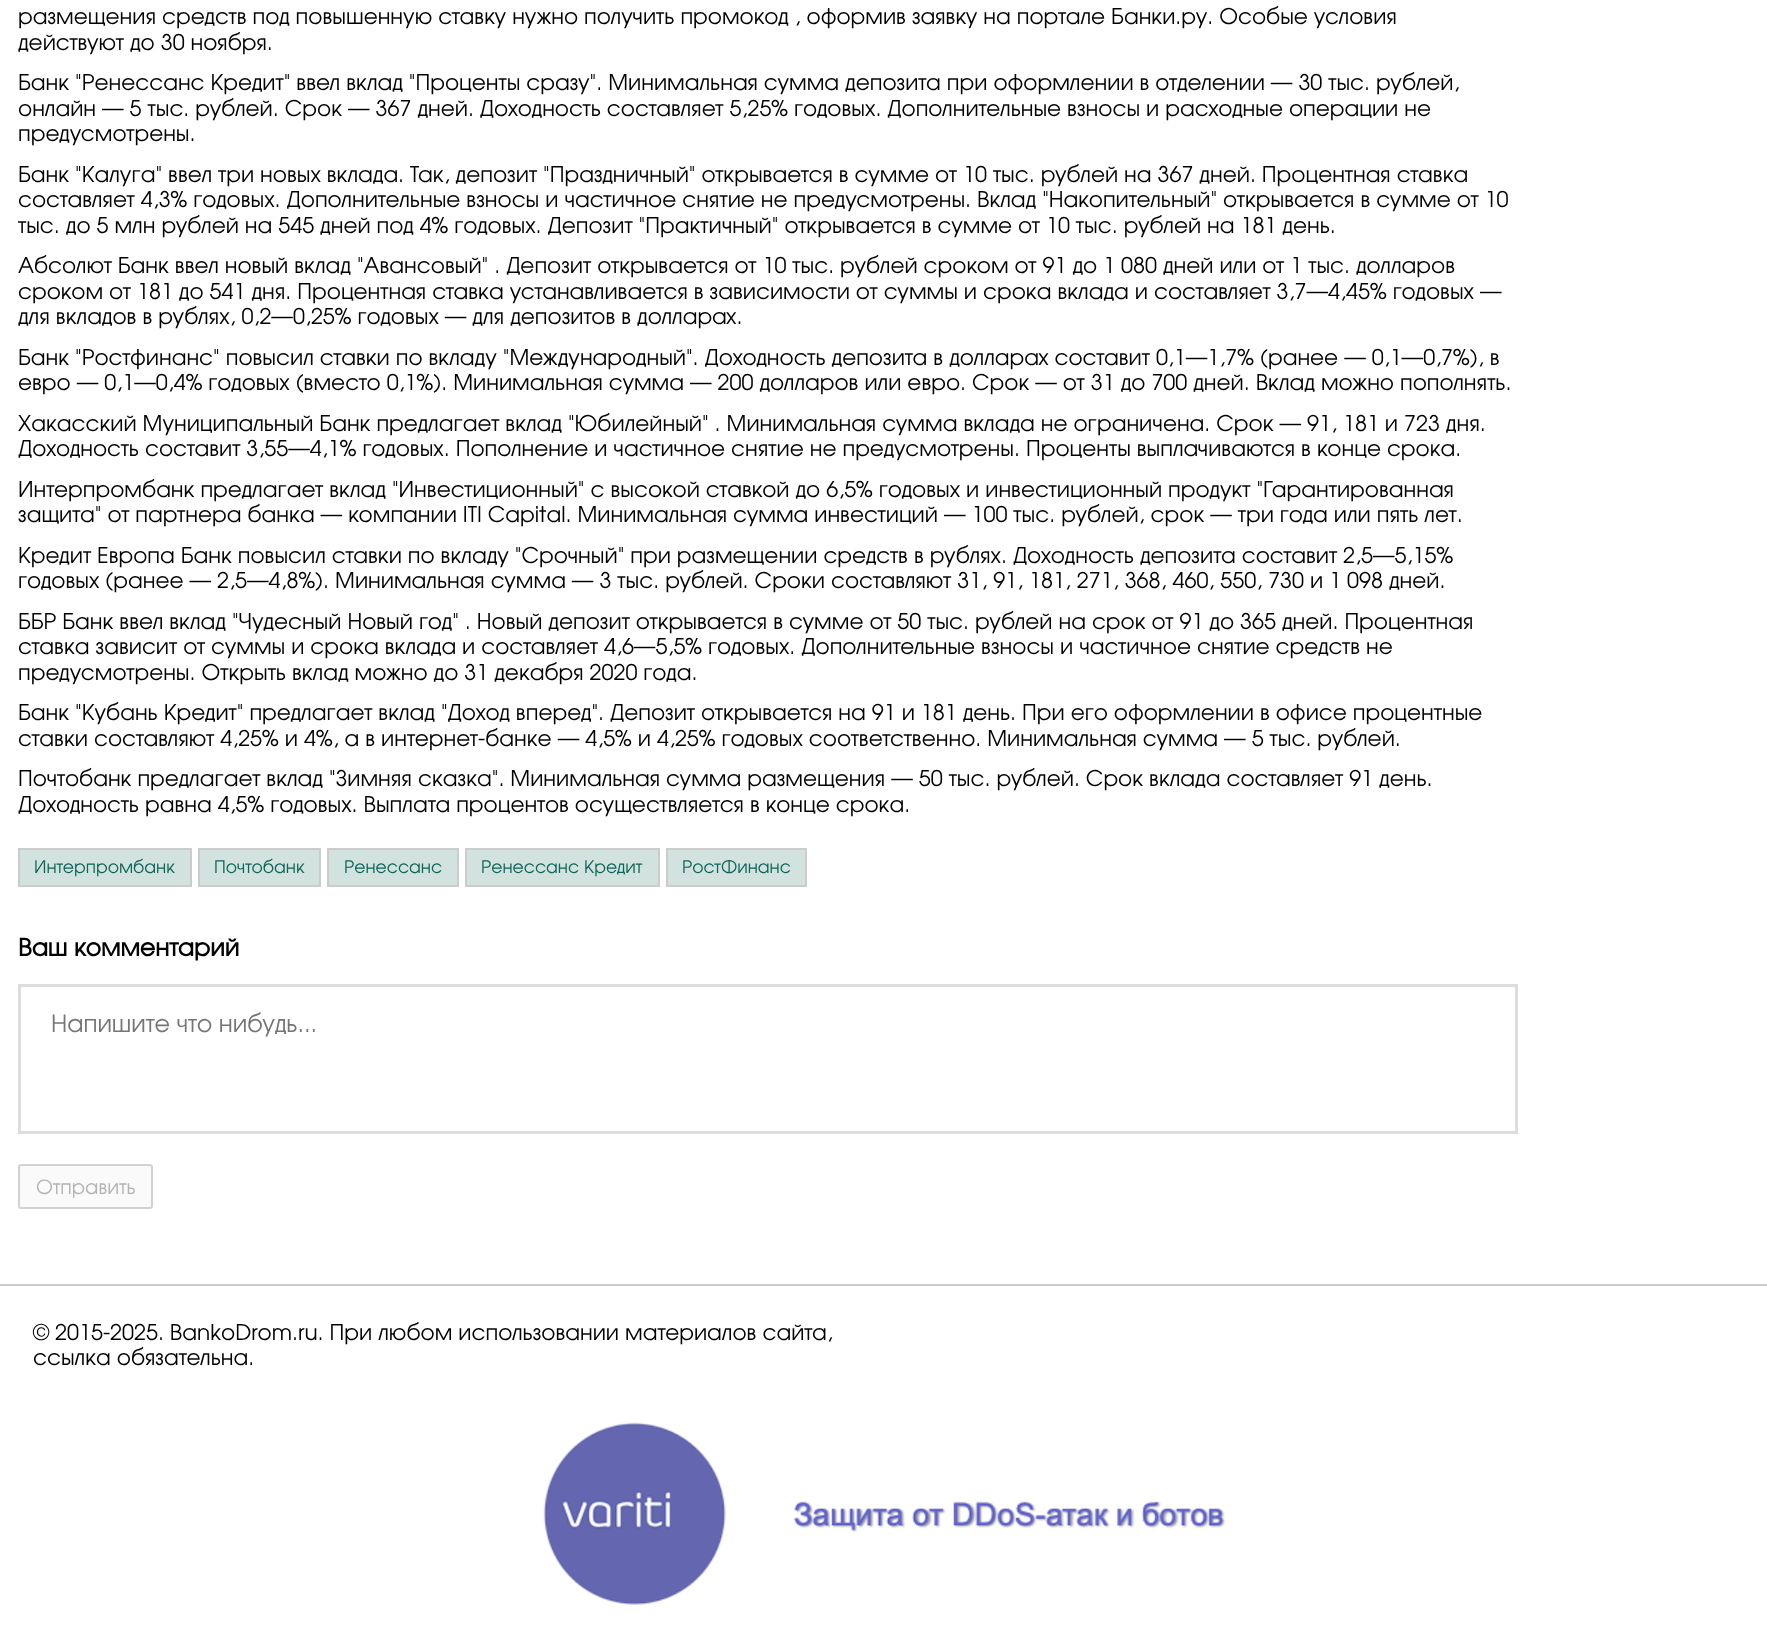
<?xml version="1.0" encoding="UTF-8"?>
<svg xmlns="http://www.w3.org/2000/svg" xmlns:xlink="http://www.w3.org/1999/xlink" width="1767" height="1630">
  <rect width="100%" height="100%" fill="#ffffff" />
  <rect x="19" y="849" width="172" height="37" fill="#d1e2df" stroke="#cccccc" stroke-width="2" />
  <rect x="199" y="849" width="121" height="37" fill="#d1e2df" stroke="#cccccc" stroke-width="2" />
  <rect x="328" y="849" width="130" height="37" fill="#d1e2df" stroke="#cccccc" stroke-width="2" />
  <rect x="466" y="849" width="193" height="37" fill="#d1e2df" stroke="#cccccc" stroke-width="2" />
  <rect x="667" y="849" width="139" height="37" fill="#d1e2df" stroke="#cccccc" stroke-width="2" />
  <rect x="19.5" y="985.5" width="1497" height="147" fill="none" stroke="#dddddd" stroke-width="3" />
  <rect x="19" y="1165" width="133" height="43" rx="2" fill="#fafafa" stroke="#d2d2d2" stroke-width="2" />
  <rect y="1284" width="1767" height="2" fill="#cccccc" />
  <image x="543" y="1422" width="683" height="183" xlink:href="image1.png" />
  <text x="18" y="24" style="font-family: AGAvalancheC; font-size: 21.6px; fill: #000000">размещения средств под повышенную ставку нужно получить промокод , оформив заявку на портале Банки.ру. Особые условия</text>
  <text x="18" y="50" style="font-family: AGAvalancheC; font-size: 21.6px; fill: #000000">действуют до 30 ноября.</text>
  <text x="18" y="90" style="font-family: AGAvalancheC; font-size: 21.6px; fill: #000000">Банк "Ренессанс Кредит" ввел вклад "Проценты сразу". Минимальная сумма депозита при оформлении в отделении — 30 тыс. рублей,</text>
  <text x="18" y="116" style="font-family: AGAvalancheC; font-size: 21.6px; fill: #000000">онлайн — 5 тыс. рублей. Срок — 367 дней. Доходность составляет 5,25% годовых. Дополнительные взносы и расходные операции не</text>
  <text x="18" y="141" style="font-family: AGAvalancheC; font-size: 21.6px; fill: #000000">предусмотрены.</text>
  <text x="18" y="182" style="font-family: AGAvalancheC; font-size: 21.6px; fill: #000000">Банк "Калуга" ввел три новых вклада. Так, депозит "Праздничный" открывается в сумме от 10 тыс. рублей на 367 дней. Процентная ставка</text>
  <text x="18" y="207" style="font-family: AGAvalancheC; font-size: 21.6px; fill: #000000">составляет 4,3% годовых. Дополнительные взносы и частичное снятие не предусмотрены. Вклад "Накопительный" открывается в сумме от 10</text>
  <text x="18" y="233" style="font-family: AGAvalancheC; font-size: 21.6px; fill: #000000">тыс. до 5 млн рублей на 545 дней под 4% годовых. Депозит "Практичный" открывается в сумме от 10 тыс. рублей на 181 день.</text>
  <text x="18" y="273" style="font-family: AGAvalancheC; font-size: 21.6px; fill: #000000">Абсолют Банк ввел новый вклад "Авансовый" . Депозит открывается от 10 тыс. рублей сроком от 91 до 1 080 дней или от 1 тыс. долларов</text>
  <text x="18" y="299" style="font-family: AGAvalancheC; font-size: 21.6px; fill: #000000">сроком от 181 до 541 дня. Процентная ставка устанавливается в зависимости от суммы и срока вклада и составляет 3,7—4,45% годовых —</text>
  <text x="18" y="324" style="font-family: AGAvalancheC; font-size: 21.6px; fill: #000000">для вкладов в рублях, 0,2—0,25% годовых — для депозитов в долларах.</text>
  <text x="18" y="365" style="font-family: AGAvalancheC; font-size: 21.6px; fill: #000000">Банк "Ростфинанс" повысил ставки по вкладу "Международный". Доходность депозита в долларах составит 0,1—1,7% (ранее — 0,1—0,7%), в</text>
  <text x="18" y="390" style="font-family: AGAvalancheC; font-size: 21.6px; fill: #000000">евро — 0,1—0,4% годовых (вместо 0,1%). Минимальная сумма — 200 долларов или евро. Срок — от 31 до 700 дней. Вклад можно пополнять.</text>
  <text x="18" y="431" style="font-family: AGAvalancheC; font-size: 21.6px; fill: #000000">Хакасский Муниципальный Банк предлагает вклад "Юбилейный" . Минимальная сумма вклада не ограничена. Срок — 91, 181 и 723 дня.</text>
  <text x="18" y="456" style="font-family: AGAvalancheC; font-size: 21.6px; fill: #000000">Доходность составит 3,55—4,1% годовых. Пополнение и частичное снятие не предусмотрены. Проценты выплачиваются в конце срока.</text>
  <text x="18" y="497" style="font-family: AGAvalancheC; font-size: 21.6px; fill: #000000">Интерпромбанк предлагает вклад "Инвестиционный" с высокой ставкой до 6,5% годовых и инвестиционный продукт "Гарантированная</text>
  <text x="18" y="522" style="font-family: AGAvalancheC; font-size: 21.6px; fill: #000000">защита" от партнера банка — компании ITI Capital. Минимальная сумма инвестиций — 100 тыс. рублей, срок — три года или пять лет.</text>
  <text x="18" y="563" style="font-family: AGAvalancheC; font-size: 21.6px; fill: #000000">Кредит Европа Банк повысил ставки по вкладу "Срочный" при размещении средств в рублях. Доходность депозита составит 2,5—5,15%</text>
  <text x="18" y="588" style="font-family: AGAvalancheC; font-size: 21.6px; fill: #000000">годовых (ранее — 2,5—4,8%). Минимальная сумма — 3 тыс. рублей. Сроки составляют 31, 91, 181, 271, 368, 460, 550, 730 и 1 098 дней.</text>
  <text x="18" y="629" style="font-family: AGAvalancheC; font-size: 21.6px; fill: #000000">ББР Банк ввел вклад "Чудесный Новый год" . Новый депозит открывается в сумме от 50 тыс. рублей на срок от 91 до 365 дней. Процентная</text>
  <text x="18" y="654" style="font-family: AGAvalancheC; font-size: 21.6px; fill: #000000">ставка зависит от суммы и срока вклада и составляет 4,6—5,5% годовых. Дополнительные взносы и частичное снятие средств не</text>
  <text x="18" y="680" style="font-family: AGAvalancheC; font-size: 21.6px; fill: #000000">предусмотрены. Открыть вклад можно до 31 декабря 2020 года.</text>
  <text x="18" y="720" style="font-family: AGAvalancheC; font-size: 21.6px; fill: #000000">Банк "Кубань Кредит" предлагает вклад "Доход вперед". Депозит открывается на 91 и 181 день. При его оформлении в офисе процентные</text>
  <text x="18" y="746" style="font-family: AGAvalancheC; font-size: 21.6px; fill: #000000">ставки составляют 4,25% и 4%, а в интернет-банке — 4,5% и 4,25% годовых соответственно. Минимальная сумма — 5 тыс. рублей.</text>
  <text x="18" y="786" style="font-family: AGAvalancheC; font-size: 21.6px; fill: #000000">Почтобанк предлагает вклад "Зимняя сказка". Минимальная сумма размещения — 50 тыс. рублей. Срок вклада составляет 91 день.</text>
  <text x="18" y="812" style="font-family: AGAvalancheC; font-size: 21.6px; fill: #000000">Доходность равна 4,5% годовых. Выплата процентов осуществляется в конце срока.</text>
  <text x="34" y="873" style="font-family: AGAvalancheC; font-size: 17.25px; fill: #0f6459">Интерпромбанк</text>
  <text x="214" y="873" style="font-family: AGAvalancheC; font-size: 17.25px; fill: #0f6459">Почтобанк</text>
  <text x="344" y="873" style="font-family: AGAvalancheC; font-size: 17.25px; fill: #0f6459">Ренессанс</text>
  <text x="481" y="873" style="font-family: AGAvalancheC; font-size: 17.25px; fill: #0f6459">Ренессанс Кредит</text>
  <text x="682" y="873" style="font-family: AGAvalancheC; font-size: 17.25px; fill: #0f6459">РостФинанс</text>
  <text x="18" y="956" style="font-family: AGAvalancheC; font-size: 23.75px; font-weight: bold; fill: #000000">Ваш комментарий</text>
  <text x="51" y="1032" style="font-family: AGAvalancheC; font-size: 23.75px; fill: #757575">Напишите что нибудь...</text>
  <text x="36" y="1194" style="font-family: AGAvalancheC; font-size: 19.5px; fill: #b4b4b4">Отправить</text>
  <text x="33" y="1340" style="font-family: AGAvalancheC; font-size: 21.6px; fill: #000000">© 2015-2025. BankoDrom.ru. При любом использовании материалов сайта,</text>
  <text x="33" y="1365" style="font-family: AGAvalancheC; font-size: 21.6px; fill: #000000">ссылка обязательна.</text>
</svg>
